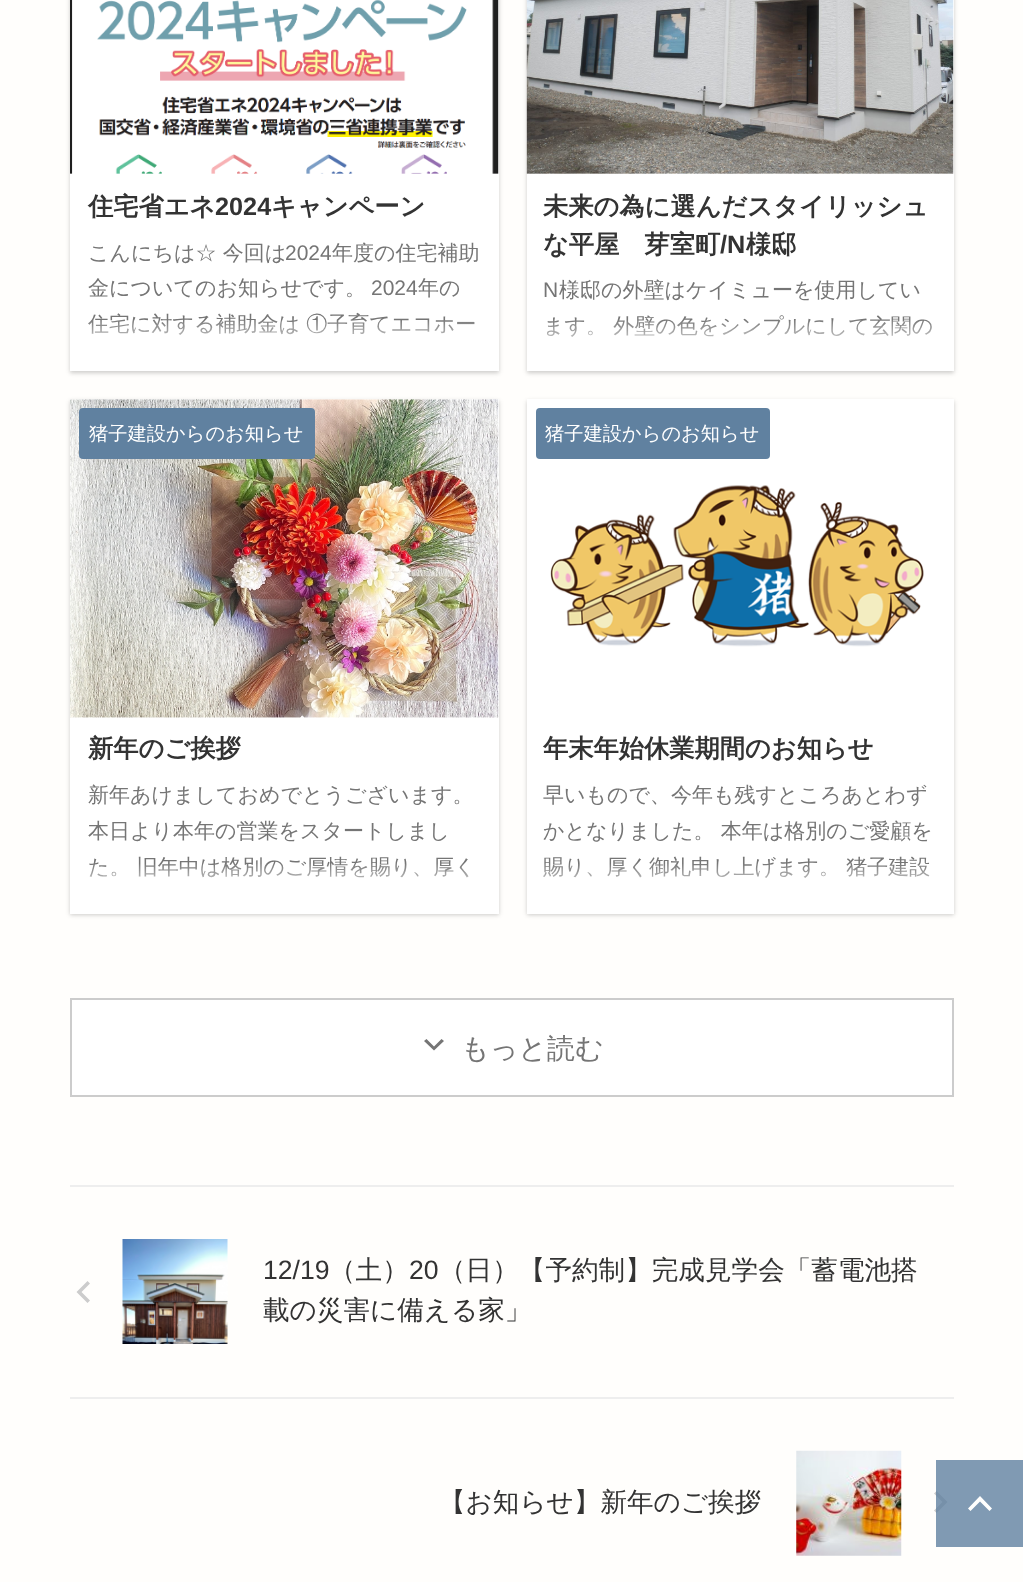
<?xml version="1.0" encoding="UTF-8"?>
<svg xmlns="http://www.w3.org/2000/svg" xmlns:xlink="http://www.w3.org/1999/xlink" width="1023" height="1582">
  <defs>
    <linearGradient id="g1" gradientUnits="userSpaceOnUse" x1="284" y1="319" x2="284" y2="354"><stop offset="0" stop-color="#ffffff" stop-opacity="0" /><stop offset="1" stop-color="#ffffff" /></linearGradient>
    <linearGradient id="g2" gradientUnits="userSpaceOnUse" x1="740" y1="319" x2="740" y2="354"><stop offset="0" stop-color="#ffffff" stop-opacity="0" /><stop offset="1" stop-color="#ffffff" /></linearGradient>
    <linearGradient id="g3" gradientUnits="userSpaceOnUse" x1="284" y1="863" x2="284" y2="896"><stop offset="0" stop-color="#ffffff" stop-opacity="0" /><stop offset="1" stop-color="#ffffff" /></linearGradient>
    <linearGradient id="g4" gradientUnits="userSpaceOnUse" x1="740" y1="863" x2="740" y2="896"><stop offset="0" stop-color="#ffffff" stop-opacity="0" /><stop offset="1" stop-color="#ffffff" /></linearGradient>
  </defs>
  <rect width="100%" height="100%" fill="#fffefc" />
  <rect x="70" y="-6" width="429" height="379" fill="#000000" fill-opacity="0.2" filter="blur(2px)" />
  <rect x="70" width="429" height="371" fill="#ffffff" />
  <image x="70" y="0" width="429" height="174" xlink:href="image1.png" />
  <rect x="527" y="-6" width="427" height="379" fill="#000000" fill-opacity="0.2" filter="blur(2px)" />
  <rect x="527" width="427" height="371" fill="#ffffff" />
  <image x="526" y="0" width="428" height="174" xlink:href="image2.png" />
  <rect x="70" y="401" width="429" height="514" fill="#000000" fill-opacity="0.2" filter="blur(2px)" />
  <rect x="70" y="399" width="429" height="515" fill="#ffffff" />
  <image x="70" y="399" width="429" height="319" xlink:href="image3.png" />
  <rect x="79" y="408" width="236" height="51" rx="4" fill="#6081a0" />
  <rect x="527" y="401" width="427" height="514" fill="#000000" fill-opacity="0.2" filter="blur(2px)" />
  <rect x="527" y="399" width="427" height="515" fill="#ffffff" />
  <rect x="536" y="408" width="234" height="51" rx="4" fill="#6081a0" />
  <image x="550" y="485" width="374" height="162" xlink:href="image4.png" />
  <rect x="71" y="999" width="882" height="97" fill="#ffffff" stroke="#cccccc" stroke-width="2" />
  <path d="M 434 1046.5 l 7.5 -7.5 l 2.5 2 l -10 9.5 l -10 -9.5 l 2.5 -2 z" fill="#757575" />
  <rect x="70" y="1185" width="884" height="2" fill="#eeeeee" />
  <path d="M 81.5 1292 l 8.5 8.5 l -2.5 2.5 l -11 -11 l 11 -11 l 2.5 2.5 z" fill="#cccccc" />
  <image x="122" y="1239" width="106" height="105" xlink:href="image5.png" />
  <rect x="70" y="1397" width="884" height="2" fill="#eeeeee" />
  <image x="796" y="1450" width="106" height="106" xlink:href="image6.png" />
  <path d="M 942.5 1502 l -8.5 -8.5 l 2.5 -2.5 l 11 11 l -11 11 l -2.5 -2.5 z" fill="#cccccc" />
  <rect x="936" y="1460" width="87" height="87" fill="#6081a0" fill-opacity="0.8" />
  <path d="M 980 1501.5 l -9.5 9.5 l -2.5 -2.5 l 12 -12.5 l 12 12.5 l -2.5 2.5 z" fill="#fffffe" />
  <text x="88" y="215" style="font-family: WenQuanYi Zen Hei; font-size: 25.25px; font-weight: bold; fill: #333333">住宅省エネ</text>
  <text x="215" y="215" style="font-family: Liberation Sans; font-size: 25.25px; font-weight: bold; fill: #333333">2024</text>
  <text x="271" y="215" style="font-family: WenQuanYi Zen Hei; font-size: 25.25px; font-weight: bold; fill: #333333">キャンペーン</text>
  <text x="88" y="260" style="font-family: WenQuanYi Zen Hei; font-size: 21px; font-weight: 500; fill: #757575">こんにちは☆ 今回は</text>
  <text x="285" y="260" style="font-family: Liberation Sans; font-size: 21px; fill: #757575">2024</text>
  <text x="332" y="260" style="font-family: WenQuanYi Zen Hei; font-size: 21px; font-weight: 500; fill: #757575">年度の住宅補助</text>
  <text x="88" y="295" style="font-family: WenQuanYi Zen Hei; font-size: 21px; font-weight: 500; fill: #757575">金についてのお知らせです。</text>
  <text x="371" y="295" style="font-family: Liberation Sans; font-size: 21px; fill: #757575">2024</text>
  <text x="418" y="295" style="font-family: WenQuanYi Zen Hei; font-size: 21px; font-weight: 500; fill: #757575">年の</text>
  <text x="88" y="331" style="font-family: WenQuanYi Zen Hei; font-size: 21px; font-weight: 500; fill: #757575">住宅に対する補助金は ①子育てエコホー</text>
  <rect x="88" y="320" width="386" height="15" fill="url(#g1)" />
  <text x="543" y="215" style="font-family: WenQuanYi Zen Hei; font-size: 25.25px; font-weight: bold; fill: #333333">未来の為に選んだスタイリッシュ</text>
  <text x="543" y="253" style="font-family: WenQuanYi Zen Hei; font-size: 25.25px; font-weight: bold; fill: #333333">な平屋　芽室町</text>
  <text x="720" y="253" style="font-family: Liberation Sans; font-size: 25.25px; font-weight: bold; fill: #333333">/N</text>
  <text x="746" y="253" style="font-family: WenQuanYi Zen Hei; font-size: 25.25px; font-weight: bold; fill: #333333">様邸</text>
  <text x="543" y="297" style="font-family: Liberation Sans; font-size: 21px; fill: #757575">N</text>
  <text x="559" y="297" style="font-family: WenQuanYi Zen Hei; font-size: 21px; font-weight: 500; fill: #757575">様邸の外壁はケイミューを使用してい</text>
  <text x="543" y="333" style="font-family: WenQuanYi Zen Hei; font-size: 21px; font-weight: 500; fill: #757575">ます。 外壁の色をシンプルにして玄関の</text>
  <rect x="547" y="320" width="385" height="17" fill="url(#g2)" />
  <text x="89" y="440" style="font-family: WenQuanYi Zen Hei; font-size: 19.25px; font-weight: 500; fill: #ffffff">猪子建設からのお知らせ</text>
  <text x="88" y="757" style="font-family: WenQuanYi Zen Hei; font-size: 25.25px; font-weight: bold; fill: #333333">新年のご挨拶</text>
  <text x="88" y="802" style="font-family: WenQuanYi Zen Hei; font-size: 21px; font-weight: 500; fill: #757575">新年あけましておめでとうございます。</text>
  <text x="88" y="838" style="font-family: WenQuanYi Zen Hei; font-size: 21px; font-weight: 500; fill: #757575">本日より本年の営業をスタートしまし</text>
  <text x="88" y="874" style="font-family: WenQuanYi Zen Hei; font-size: 21px; font-weight: 500; fill: #757575">た。 旧年中は格別のご厚情を賜り、厚く</text>
  <rect x="89" y="864" width="379" height="14" fill="url(#g3)" />
  <text x="545" y="440" style="font-family: WenQuanYi Zen Hei; font-size: 19.25px; font-weight: 500; fill: #ffffff">猪子建設からのお知らせ</text>
  <text x="543" y="757" style="font-family: WenQuanYi Zen Hei; font-size: 25.25px; font-weight: bold; fill: #333333">年末年始休業期間のお知らせ</text>
  <text x="543" y="802" style="font-family: WenQuanYi Zen Hei; font-size: 21px; font-weight: 500; fill: #757575">早いもので、今年も残すところあとわず</text>
  <text x="543" y="838" style="font-family: WenQuanYi Zen Hei; font-size: 21px; font-weight: 500; fill: #757575">かとなりました。 本年は格別のご愛顧を</text>
  <text x="543" y="874" style="font-family: WenQuanYi Zen Hei; font-size: 21px; font-weight: 500; fill: #757575">賜り、厚く御礼申し上げます。 猪子建設</text>
  <rect x="544" y="864" width="386" height="14" fill="url(#g4)" />
  <text x="461" y="1058" style="font-family: WenQuanYi Zen Hei; font-size: 28px; font-weight: 500; fill: #757575">もっと読む</text>
  <text x="263" y="1279" style="font-family: Liberation Sans; font-size: 26.6px; fill: #333333">12/19</text>
  <text x="329" y="1279" style="font-family: WenQuanYi Zen Hei; font-size: 26.6px; font-weight: 500; fill: #333333">（土）</text>
  <text x="409" y="1279" style="font-family: Liberation Sans; font-size: 26.6px; fill: #333333">20</text>
  <text x="439" y="1279" style="font-family: WenQuanYi Zen Hei; font-size: 26.6px; font-weight: 500; fill: #333333">（日）【予約制】完成見学会「蓄電池搭</text>
  <text x="263" y="1319" style="font-family: WenQuanYi Zen Hei; font-size: 26.6px; font-weight: 500; fill: #333333">載の災害に備える家」</text>
  <text x="439" y="1511" style="font-family: WenQuanYi Zen Hei; font-size: 26.6px; font-weight: 500; fill: #333333">【お知らせ】新年のご挨拶</text>
</svg>
